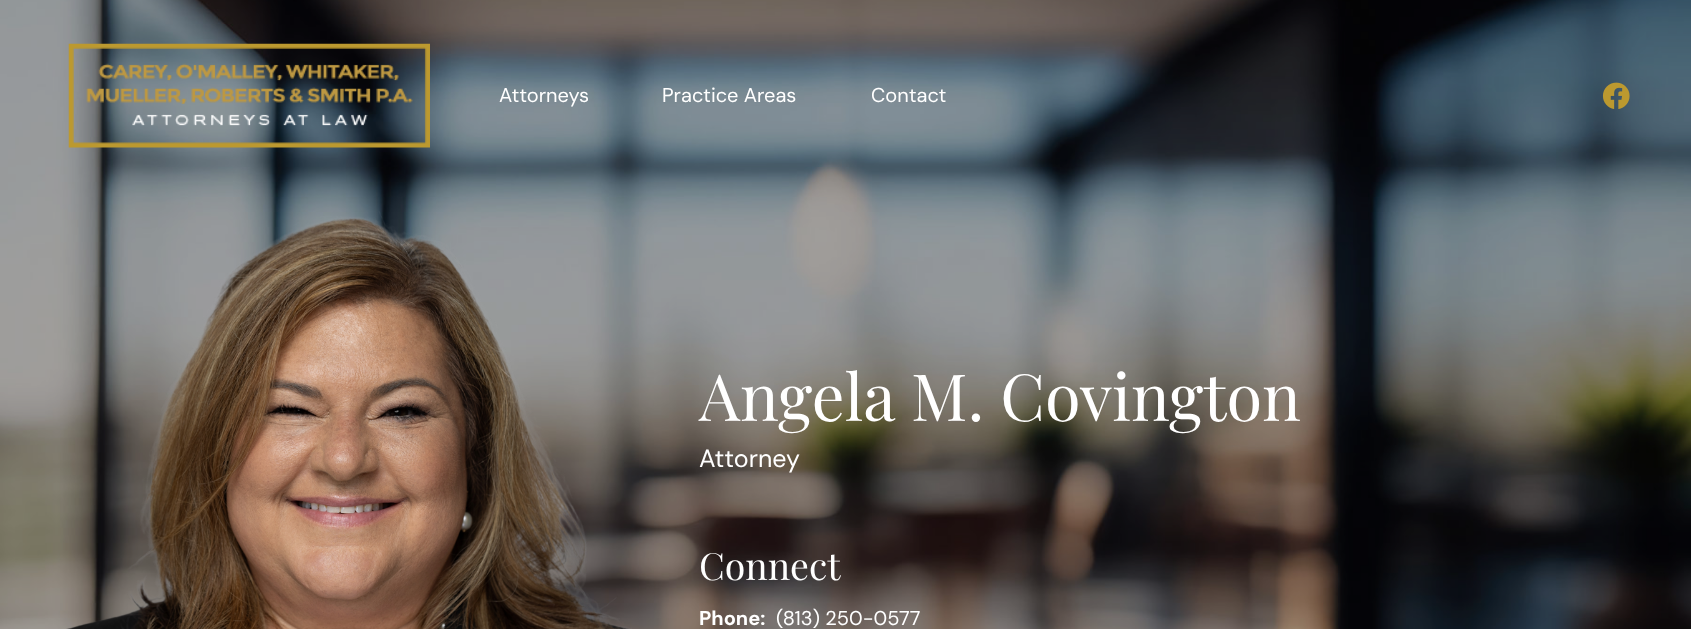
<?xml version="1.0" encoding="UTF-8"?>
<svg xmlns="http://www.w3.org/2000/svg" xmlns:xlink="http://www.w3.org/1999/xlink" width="1691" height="629">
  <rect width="100%" height="100%" fill="#ffffff" />
  <image x="0" y="0" width="1691" height="629" xlink:href="image3.png" />
  <image x="68" y="43" width="362" height="105" xlink:href="image1.png" />
  <image x="1602" y="82" width="28" height="27" xlink:href="image2.png" />
  <image x="66" y="211" width="566" height="418" xlink:href="image4.png" />
  <text x="499" y="102" style="font-family: DM Sans; font-size: 20px; fill: #ffffff">Attorneys</text>
  <text x="662" y="102" style="font-family: DM Sans; font-size: 20px; fill: #ffffff">Practice Areas</text>
  <text x="871" y="102" style="font-family: DM Sans; font-size: 20px; fill: #ffffff">Contact</text>
  <text x="699" y="421" style="font-family: Playfair Display; font-size: 65px; fill: #ffffff">Angela M. Covington</text>
  <text x="699" y="467" style="font-family: DM Sans; font-size: 25px; fill: #ffffff">Attorney</text>
  <text x="699" y="580" style="font-family: Playfair Display; font-size: 37.5px; fill: #ffffff">Connect</text>
  <text x="699" y="625" style="font-family: DM Sans; font-size: 20px; font-weight: bold; fill: #ffffff">Phone:</text>
  <text x="776" y="625" style="font-family: DM Sans; font-size: 20px; fill: #ffffff">(813) 250-0577</text>
</svg>
